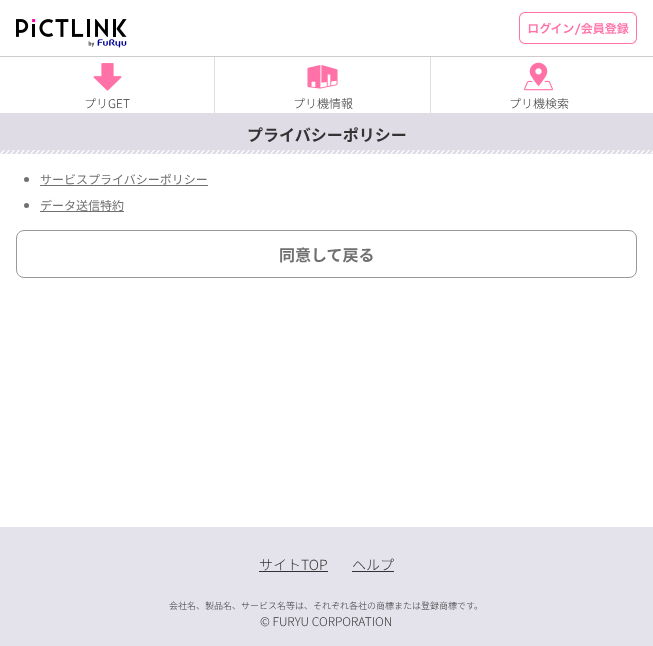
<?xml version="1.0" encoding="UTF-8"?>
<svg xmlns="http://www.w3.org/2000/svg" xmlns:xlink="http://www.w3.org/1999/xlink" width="653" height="646">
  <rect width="100%" height="100%" fill="#ffffff" />
  <rect y="56" width="653" height="1" fill="#cccccc" />
  <image x="16" y="19" width="111" height="29" xlink:href="image1.png" />
  <image x="519" y="12" width="118" height="32" xlink:href="image2.png" />
  <rect y="113" width="653" height="41" fill="#dfdce5" />
  <rect x="214" y="57" width="1" height="56" fill="#dfdce5" />
  <image x="93" y="63" width="29" height="28" xlink:href="image3.png" />
  <rect x="430" y="57" width="1" height="56" fill="#dfdce5" />
  <image x="307" y="65" width="31" height="24" xlink:href="image4.png" />
  <image x="524" y="62" width="29" height="29" xlink:href="image5.png" />
  <image x="0" y="150" width="653" height="4" xlink:href="image6.png" />
  <circle cx="26.5" cy="179.5" r="2.5" fill="#707070" />
  <rect x="40" y="185" width="168" height="1" fill="#707070" />
  <circle cx="26.5" cy="205.5" r="2.5" fill="#707070" />
  <rect x="40" y="211" width="84" height="1" fill="#707070" />
  <rect x="16.5" y="230.5" width="620" height="47" rx="7.5" fill="none" stroke="#999999" />
  <rect y="527" width="653" height="119" fill="#e4e2ea" />
  <rect x="259" y="571" width="69" height="1" fill="#333333" />
  <rect x="352" y="571" width="42" height="1" fill="#333333" />
  <text x="84" y="108" style="font-family: Noto Sans CJK JP; font-size: 12px; font-weight: 300; fill: #333333">プリGET</text>
  <text x="293" y="108" style="font-family: Noto Sans CJK JP; font-size: 12px; font-weight: 300; fill: #333333">プリ機情報</text>
  <text x="509" y="108" style="font-family: Noto Sans CJK JP; font-size: 12px; font-weight: 300; fill: #333333">プリ機検索</text>
  <text x="247" y="141" style="font-family: Noto Sans CJK JP; font-size: 16px; font-weight: bold; fill: #333333">プライバシーポリシー</text>
  <text x="40" y="184" style="font-family: Noto Sans CJK JP; font-size: 12px; fill: #707070">サービスプライバシーポリシー</text>
  <text x="40" y="210" style="font-family: Noto Sans CJK JP; font-size: 12px; fill: #707070">データ送信特約</text>
  <text x="279" y="261" style="font-family: Noto Sans CJK JP; font-size: 16px; font-weight: bold; fill: #707070">同意して戻る</text>
  <text x="259" y="570" style="font-family: Noto Sans CJK JP; font-size: 14px; font-weight: 300; fill: #333333">サイトTOP</text>
  <text x="352" y="570" style="font-family: Noto Sans CJK JP; font-size: 14px; font-weight: 300; fill: #333333">ヘルプ</text>
  <text x="169" y="609" style="font-family: Noto Sans CJK JP; font-size: 9px; font-weight: 300; fill: #333333">会社名、製品名、サービス名等は、それぞれ各社の商標または登録商標です。</text>
  <text x="260" y="626" style="font-family: Noto Sans CJK JP; font-size: 12px; font-weight: 300; fill: #333333">© FURYU CORPORATION</text>
</svg>
